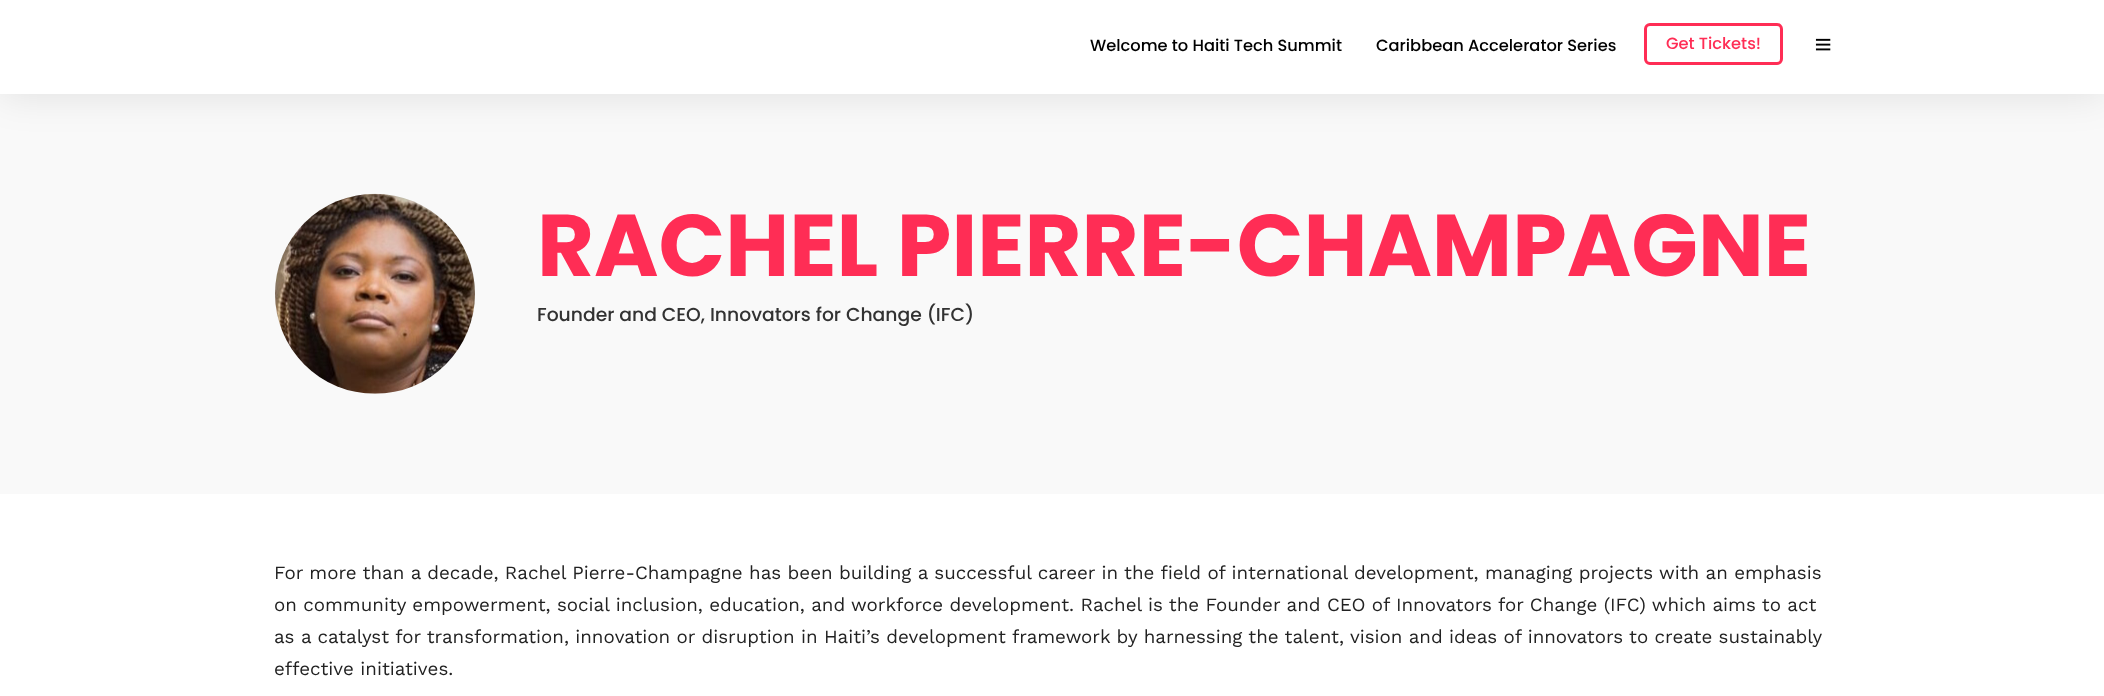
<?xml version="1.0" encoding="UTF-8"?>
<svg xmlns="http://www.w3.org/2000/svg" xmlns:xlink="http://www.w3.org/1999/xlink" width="2104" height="696">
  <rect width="100%" height="100%" fill="#ffffff" />
  <rect y="94" width="2104" height="400" fill="#f9f9f9" />
  <rect y="1" width="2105" height="94" fill="#000000" fill-opacity="0.1" filter="blur(19px)" />
  <rect width="2104" height="94" fill="#ffffff" />
  <rect x="1645.5" y="24.5" width="136" height="39" rx="4.5" fill="none" stroke="#ff2d55" stroke-width="3" />
  <image x="1815" y="38" width="16" height="13" xlink:href="image1.png" />
  <image x="275" y="193" width="200" height="201" xlink:href="image2.png" />
  <text x="1090" y="51" style="font-family: Poppins; font-size: 16.25px; font-weight: 500; fill: #000000">Welcome to Haiti Tech Summit</text>
  <text x="1376" y="51" style="font-family: Poppins; font-size: 16.25px; font-weight: 500; fill: #000000">Caribbean Accelerator Series</text>
  <text x="1666" y="49" style="font-family: Poppins; font-size: 16.25px; font-weight: 500; fill: #ff2d55">Get Tickets!</text>
  <text x="537" y="276" style="font-family: Poppins; font-size: 87.5px; font-weight: bold; fill: #ff2d55">RACHEL PIERRE-CHAMPAGNE</text>
  <text x="537" y="321" style="font-family: Poppins; font-size: 18.75px; font-weight: 500; fill: #323232">Founder and CEO, Innovators for Change (IFC)</text>
  <text x="274" y="579" style="font-family: Work Sans; font-size: 18.75px; fill: #222222">For more than a decade, Rachel Pierre-Champagne has been building a successful career in the field of international development, managing projects with an emphasis</text>
  <text x="274" y="611" style="font-family: Work Sans; font-size: 18.75px; fill: #222222">on community empowerment, social inclusion, education, and workforce development. Rachel is the Founder and CEO of Innovators for Change (IFC) which aims to act</text>
  <text x="274" y="643" style="font-family: Work Sans; font-size: 18.75px; fill: #222222">as a catalyst for transformation, innovation or disruption in Haiti’s development framework by harnessing the talent, vision and ideas of innovators to create sustainably</text>
  <text x="274" y="675" style="font-family: Work Sans; font-size: 18.75px; fill: #222222">effective initiatives.</text>
</svg>
